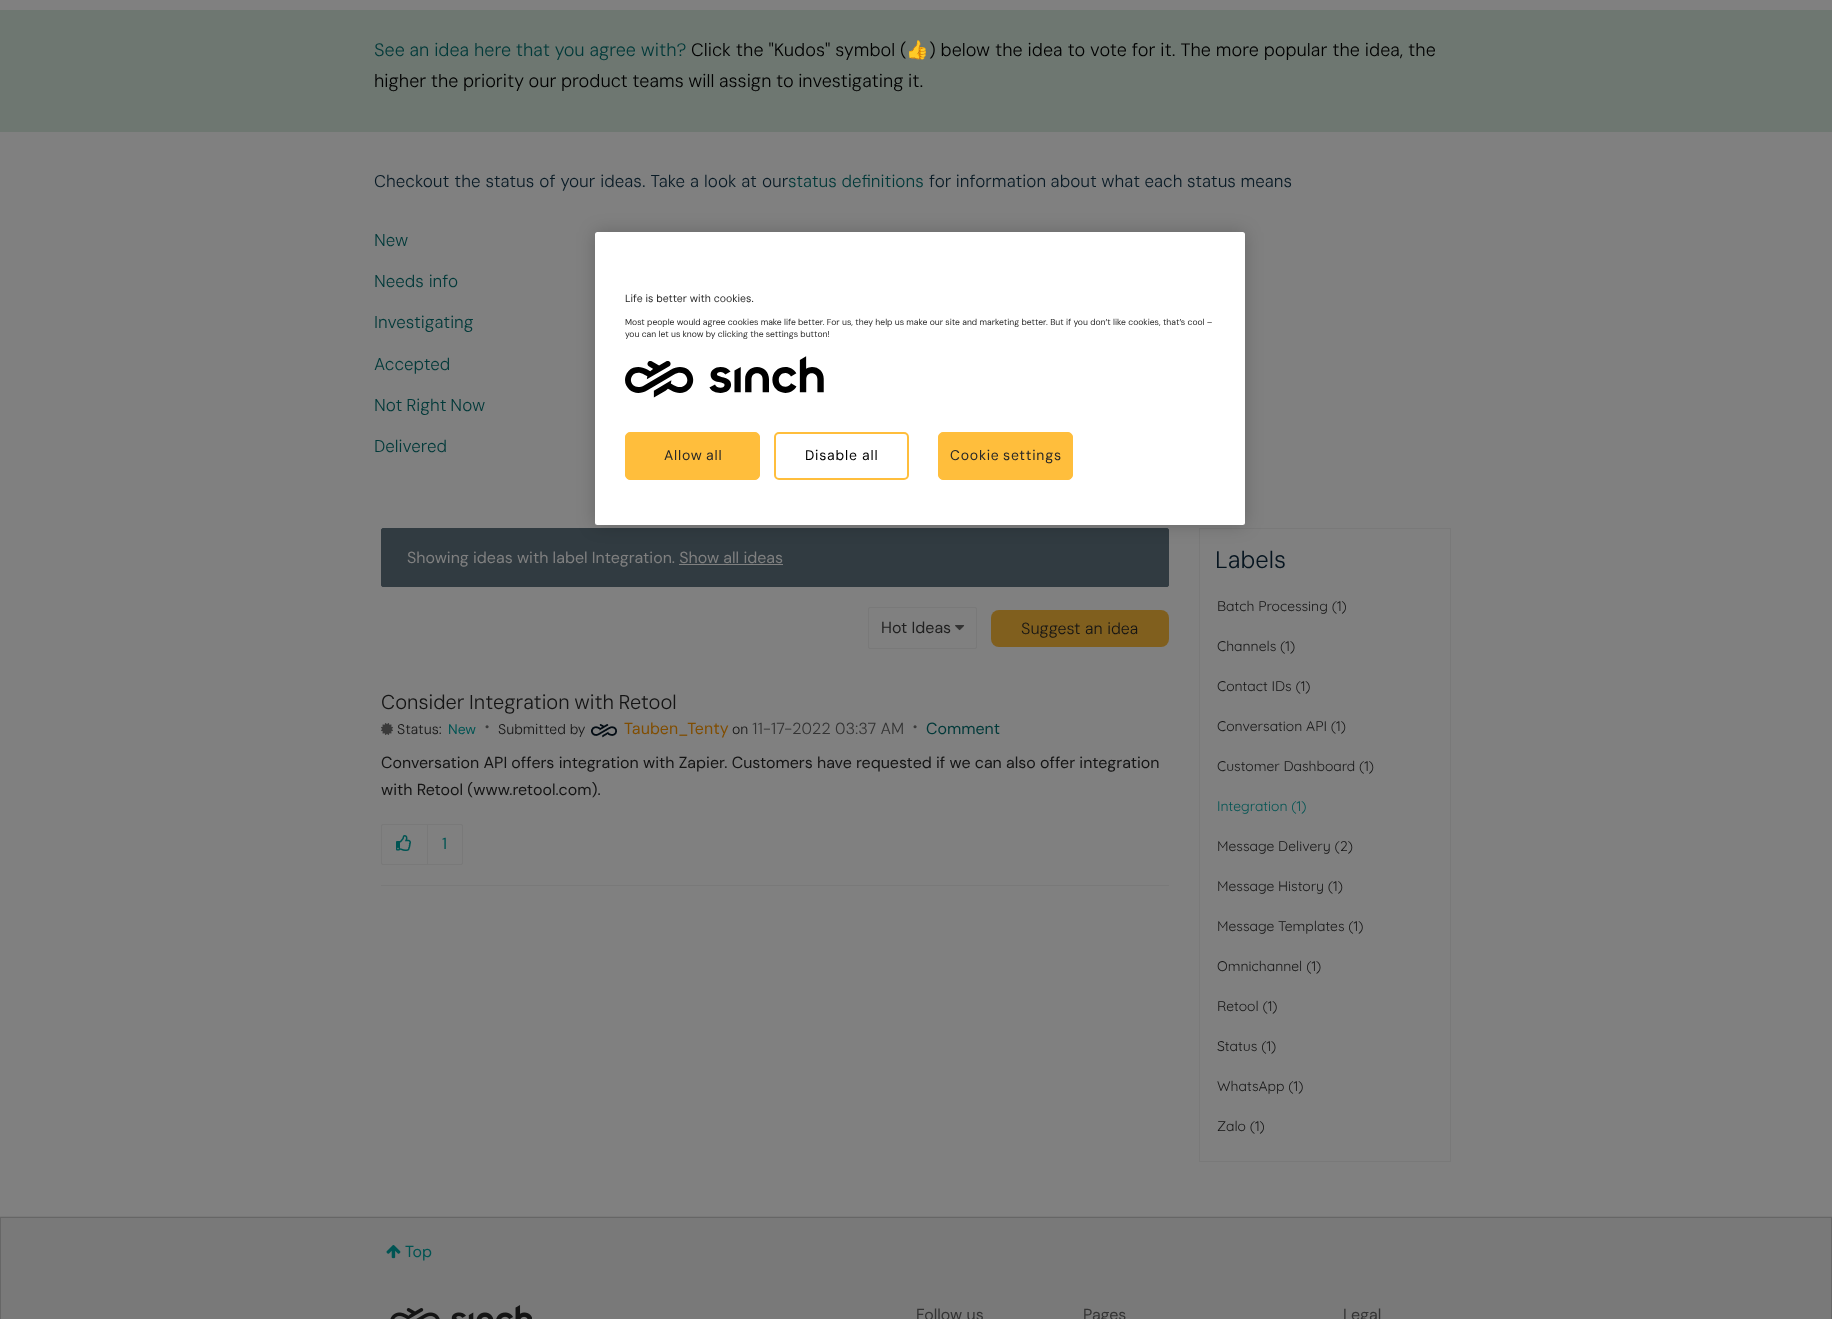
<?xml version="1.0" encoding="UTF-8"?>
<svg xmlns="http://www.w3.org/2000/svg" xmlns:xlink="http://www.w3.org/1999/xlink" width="1832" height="1319">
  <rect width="100%" height="100%" fill="#808080" />
  <rect y="10" width="1832" height="122" fill="#6e7771" />
  <rect x="381.5" y="528.5" width="787" height="58" rx="1.5" fill="#313b41" stroke="#313b41" />
  <rect x="679" y="564" width="104" height="1" fill="#808080" />
  <rect x="868.5" y="607.5" width="108" height="41" rx="1.5" fill="none" stroke="#797979" />
  <image x="955" y="625" width="10" height="6" xlink:href="image1.png" />
  <rect x="991" y="610" width="178" height="37" rx="8" fill="#805f1e" />
  <image x="381" y="723" width="12" height="12" xlink:href="image2.png" />
  <image x="591" y="724" width="26" height="14" xlink:href="image3.png" />
  <rect x="381.5" y="824.5" width="81" height="40" rx="1.5" fill="none" stroke="#797979" />
  <rect x="427" y="825" width="1" height="39" fill="#797979" />
  <image x="396" y="835" width="15" height="16" xlink:href="image4.png" />
  <rect x="381" y="885" width="788" height="1" fill="#797979" />
  <rect x="1199.5" y="528.5" width="251" height="633" fill="none" stroke="#797979" />
  <rect y="1216" width="1832" height="1" fill="#797979" />
  <rect x="0.5" y="1217.5" width="1831" height="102" fill="#797979" stroke="#666666" />
  <image x="386" y="1245" width="15" height="14" xlink:href="image5.png" />
  <image x="390" y="1305" width="142" height="14" xlink:href="image6.png" />
  <rect x="595" y="232" width="650" height="293" rx="2.5" fill="#000000" fill-opacity="0.2" filter="blur(9px)" />
  <rect x="595" y="232" width="650" height="293" rx="2.5" fill="#ffffff" />
  <image x="625" y="356" width="199" height="42" xlink:href="image7.png" />
  <rect x="625.5" y="432.5" width="134" height="47" rx="4.5" fill="#ffbe3c" stroke="#ffbe3c" />
  <rect x="775" y="433" width="133" height="46" rx="4" fill="none" stroke="#ffbe3c" stroke-width="2" />
  <rect x="938.5" y="432.5" width="134" height="47" rx="4.5" fill="#ffbe3c" stroke="#ffbe3c" />
  <text x="374" y="56" word-spacing="-0.25" style="font-family: DM Sans; font-size: 18px; font-weight: 300; fill: #003939">See an idea here that you agree with?</text>
  <text x="691" y="56" word-spacing="-0.1" style="font-family: DM Sans; font-size: 18px; font-weight: 300; fill: #000000">Click the "Kudos" symbol (</text>
  <text x="906" y="56" style="font-family: Noto Color Emoji; font-size: 18px; font-weight: bold; fill: #000000">👍</text>
  <text x="929" y="56" word-spacing="-0.1" style="font-family: DM Sans; font-size: 18px; font-weight: 300; fill: #000000">) below the idea to vote for it. The more popular the idea, the</text>
  <text x="374" y="87" word-spacing="-0.5" style="font-family: DM Sans; font-size: 18px; font-weight: 300; fill: #000000">higher the priority our product teams will assign to investigating it.</text>
  <text x="374" y="187" word-spacing="0.25" style="font-family: DM Sans; font-size: 17px; font-weight: 300; fill: #091b26">Checkout the status of your ideas. Take a look at our</text>
  <text x="788" y="187" style="font-family: DM Sans; font-size: 17px; font-weight: 300; fill: #003939">status definitions</text>
  <text x="929" y="187" word-spacing="-0.25" style="font-family: DM Sans; font-size: 17px; font-weight: 300; fill: #091b26">for information about what each status means</text>
  <text x="374" y="246" style="font-family: DM Sans; font-size: 17px; font-weight: 300; fill: #003939">New</text>
  <text x="374" y="287" style="font-family: DM Sans; font-size: 17px; font-weight: 300; fill: #003939">Needs info</text>
  <text x="374" y="328" style="font-family: DM Sans; font-size: 17px; font-weight: 300; fill: #003939">Investigating</text>
  <text x="374" y="370" style="font-family: DM Sans; font-size: 17px; font-weight: 300; fill: #003939">Accepted</text>
  <text x="374" y="411" word-spacing="-1" style="font-family: DM Sans; font-size: 17px; font-weight: 300; fill: #003939">Not Right Now</text>
  <text x="374" y="452" style="font-family: DM Sans; font-size: 17px; font-weight: 300; fill: #003939">Delivered</text>
  <text x="407" y="563" style="font-family: DM Sans; font-size: 16px; fill: #808080">Showing ideas with label Integration. Show all ideas</text>
  <text x="881" y="633" style="font-family: DM Sans; font-size: 16px; fill: #1f1f1f">Hot Ideas</text>
  <text x="1021" y="634" style="font-family: DM Sans; font-size: 16px; font-weight: 300; fill: #141414">Suggest an idea</text>
  <text x="381" y="709" word-spacing="-1" style="font-family: DM Sans; font-size: 20px; font-weight: 300; fill: #141414">Consider Integration with Retool</text>
  <text x="397" y="734" style="font-family: DM Sans; font-size: 14px; font-weight: 300; fill: #141414">Status:</text>
  <text x="448" y="734" style="font-family: 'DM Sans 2'; font-size: 14px; fill: #005453">New</text>
  <text x="485" y="731" style="font-family: Quicksand; font-size: 12px; fill: #3a3a3a">•</text>
  <text x="498" y="734" style="font-family: DM Sans; font-size: 14px; font-weight: 300; fill: #141414">Submitted by</text>
  <text x="624" y="734" style="font-family: 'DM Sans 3'; font-size: 16px; fill: #804d00">Tauben_Tenty</text>
  <text x="732" y="734" style="font-family: DM Sans; font-size: 14px; font-weight: 300; fill: #141414">on</text>
  <text x="752" y="734" style="font-family: DM Sans; font-size: 16px; font-weight: 300; fill: #333333">11-17-2022</text>
  <text x="835" y="734" style="font-family: DM Sans; font-size: 16px; font-weight: 300; fill: #333333">03:37 AM</text>
  <text x="913" y="731" style="font-family: Quicksand; font-size: 12px; fill: #3a3a3a">•</text>
  <text x="926" y="734" style="font-family: DM Sans; font-size: 16px; fill: #003939">Comment</text>
  <text x="381" y="768" style="font-family: DM Sans; font-size: 16px; fill: #141414">Conversation API offers integration with Zapier. Customers have requested if we can also offer integration</text>
  <text x="381" y="795" style="font-family: DM Sans; font-size: 16px; fill: #141414">with Retool (www.retool.com).</text>
  <text x="442" y="849" style="font-family: DM Sans; font-size: 16px; fill: #005453">1</text>
  <text x="1215" y="568" style="font-family: DM Sans; font-size: 24px; font-weight: 300; fill: #05141f">Labels</text>
  <text x="1217" y="611" style="font-family: Quicksand; font-size: 14px; fill: #141414">Batch Processing (1)</text>
  <text x="1217" y="651" style="font-family: Quicksand; font-size: 14px; fill: #141414">Channels (1)</text>
  <text x="1217" y="691" style="font-family: Quicksand; font-size: 14px; fill: #141414">Contact IDs (1)</text>
  <text x="1217" y="731" style="font-family: Quicksand; font-size: 14px; fill: #141414">Conversation API (1)</text>
  <text x="1217" y="771" style="font-family: Quicksand; font-size: 14px; fill: #141414">Customer Dashboard (1)</text>
  <text x="1217" y="811" style="font-family: Quicksand; font-size: 14px; fill: #005453">Integration (1)</text>
  <text x="1217" y="851" style="font-family: Quicksand; font-size: 14px; fill: #141414">Message Delivery (2)</text>
  <text x="1217" y="891" style="font-family: Quicksand; font-size: 14px; fill: #141414">Message History (1)</text>
  <text x="1217" y="931" style="font-family: Quicksand; font-size: 14px; fill: #141414">Message Templates (1)</text>
  <text x="1217" y="971" style="font-family: Quicksand; font-size: 14px; fill: #141414">Omnichannel (1)</text>
  <text x="1217" y="1011" style="font-family: Quicksand; font-size: 14px; fill: #141414">Retool (1)</text>
  <text x="1217" y="1051" style="font-family: Quicksand; font-size: 14px; fill: #141414">Status (1)</text>
  <text x="1217" y="1091" style="font-family: Quicksand; font-size: 14px; fill: #141414">WhatsApp (1)</text>
  <text x="1217" y="1131" style="font-family: Quicksand; font-size: 14px; fill: #141414">Zalo (1)</text>
  <text x="405" y="1257" style="font-family: DM Sans; font-size: 16px; fill: #005453">Top</text>
  <text x="916" y="1320" style="font-family: DM Sans; font-size: 16px; fill: #333333">Follow us</text>
  <text x="1083" y="1320" style="font-family: DM Sans; font-size: 16px; fill: #333333">Pages</text>
  <text x="1343" y="1320" style="font-family: DM Sans; font-size: 16px; fill: #333333">Legal</text>
  <text x="625" y="302" style="font-family: 'DM Sans 3'; font-size: 10.5px; fill: #272727">Life is better with cookies.</text>
  <text x="625" y="325" style="font-family: 'DM Sans 3'; font-size: 8.55px; fill: #272727">Most people would agree cookies make life better. For us, they help us make our site and marketing better. But if you don’t like cookies, that’s cool –</text>
  <text x="625" y="337" style="font-family: 'DM Sans 3'; font-size: 8.55px; fill: #272727">you can let us know by clicking the settings button!</text>
  <text x="664" y="460" word-spacing="-1" style="font-family: 'DM Sans 3'; font-size: 14px; letter-spacing: 0.75px; fill: #272727">Allow all</text>
  <text x="805" y="460" style="font-family: 'DM Sans 3'; font-size: 14px; letter-spacing: 0.75px; fill: #000000">Disable all</text>
  <text x="950" y="460" word-spacing="-1" style="font-family: 'DM Sans 3'; font-size: 14px; letter-spacing: 0.75px; fill: #272727">Cookie settings</text>
</svg>
